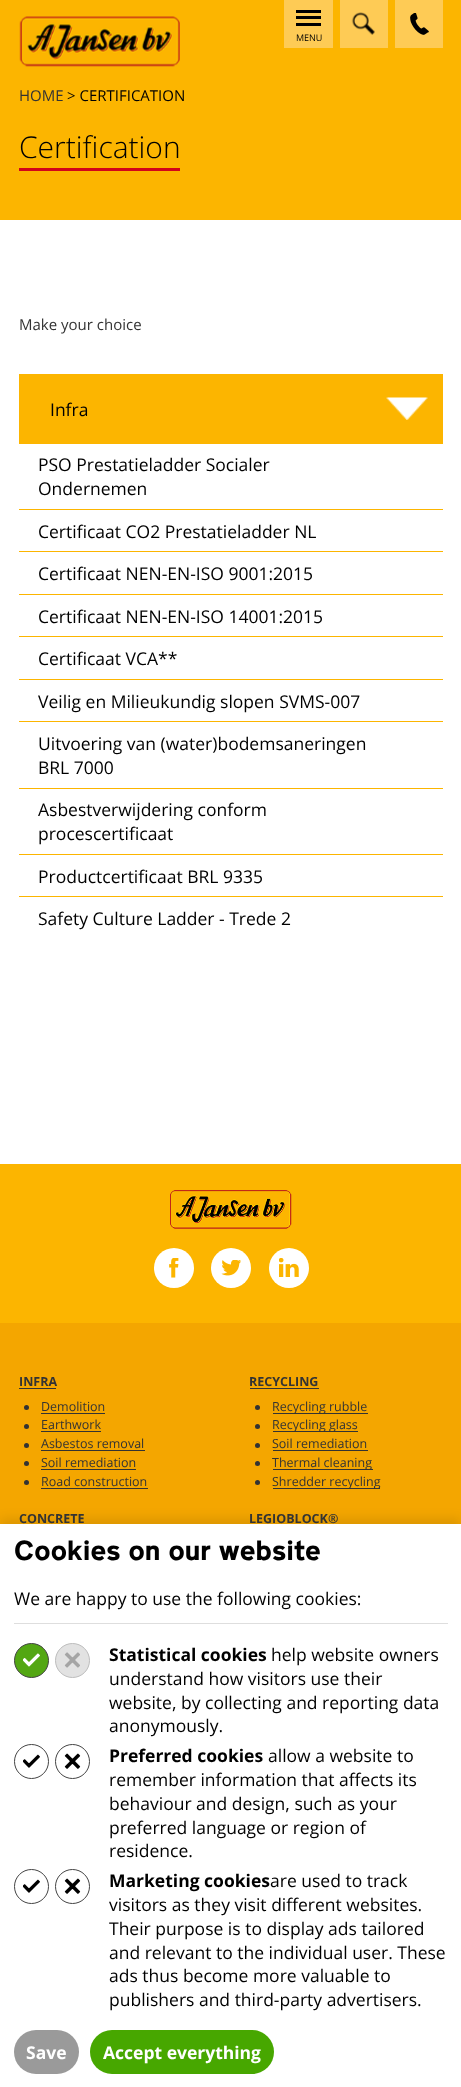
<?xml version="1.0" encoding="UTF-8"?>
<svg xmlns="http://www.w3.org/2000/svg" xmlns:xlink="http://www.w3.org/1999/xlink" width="461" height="2087">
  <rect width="100%" height="100%" fill="#ffffff" />
  <rect width="461" height="220" fill="#fcb500" />
  <image x="19" y="16" width="161" height="51" xlink:href="image1.png" />
  <rect x="284" width="49" height="48" fill="#fecb55" />
  <rect x="296" y="10" width="25" height="3" fill="#000000" />
  <rect x="296" y="16" width="25" height="3" fill="#000000" />
  <rect x="296" y="23" width="25" height="3" fill="#000000" />
  <rect x="340" width="48" height="48" fill="#fecb55" />
  <image x="351" y="12" width="24" height="23" xlink:href="image2.png" />
  <rect x="395" width="48" height="48" fill="#fecb55" />
  <image x="410" y="13" width="19" height="22" xlink:href="image3.png" />
  <rect x="19" y="168" width="161" height="3" fill="#d2041a" />
  <rect x="19" y="374" width="424" height="70" fill="#fcb500" />
  <image x="386" y="397" width="42" height="23" xlink:href="image4.png" />
  <rect x="19" y="509" width="424" height="1" fill="#fcb500" />
  <rect x="19" y="551" width="424" height="1" fill="#fcb500" />
  <rect x="19" y="594" width="424" height="1" fill="#fcb500" />
  <rect x="19" y="636" width="424" height="1" fill="#fcb500" />
  <rect x="19" y="679" width="424" height="1" fill="#fcb500" />
  <rect x="19" y="721" width="424" height="1" fill="#fcb500" />
  <rect x="19" y="788" width="424" height="1" fill="#fcb500" />
  <rect x="19" y="854" width="424" height="1" fill="#fcb500" />
  <rect x="19" y="896" width="424" height="1" fill="#fcb500" />
  <rect y="1164" width="461" height="159" fill="#fcb500" />
  <image x="170" y="1190" width="122" height="39" xlink:href="image5.png" />
  <circle cx="174" cy="1268" r="20" fill="#ffffff" />
  <image x="169" y="1258" width="10" height="20" xlink:href="image6.png" />
  <circle cx="231" cy="1268" r="20" fill="#ffffff" />
  <image x="221" y="1260" width="20" height="16" xlink:href="image7.png" />
  <circle cx="289" cy="1268" r="20" fill="#ffffff" />
  <image x="279" y="1258" width="20" height="19" xlink:href="image8.png" />
  <rect y="1323" width="461" height="201" fill="#f4a600" />
  <rect x="19" y="1388" width="37" height="1" fill="#333333" />
  <circle cx="26.5" cy="1407.5" r="2.5" fill="#333333" />
  <rect x="41" y="1413" width="64" height="1" fill="#333333" />
  <circle cx="26.5" cy="1426.5" r="2.5" fill="#333333" />
  <rect x="41" y="1431" width="60" height="1" fill="#333333" />
  <circle cx="26.5" cy="1445.5" r="2.5" fill="#333333" />
  <rect x="41" y="1450" width="104" height="1" fill="#333333" />
  <circle cx="26.5" cy="1463.5" r="2.5" fill="#333333" />
  <rect x="41" y="1469" width="95" height="1" fill="#333333" />
  <circle cx="26.5" cy="1482.5" r="2.5" fill="#333333" />
  <rect x="41" y="1488" width="107" height="1" fill="#333333" />
  <rect x="250" y="1388" width="69" height="1" fill="#333333" />
  <circle cx="257.5" cy="1407.5" r="2.5" fill="#333333" />
  <rect x="273" y="1413" width="95" height="1" fill="#333333" />
  <circle cx="257.5" cy="1426.5" r="2.5" fill="#333333" />
  <rect x="273" y="1431" width="85" height="1" fill="#333333" />
  <circle cx="257.5" cy="1445.5" r="2.5" fill="#333333" />
  <rect x="273" y="1450" width="95" height="1" fill="#333333" />
  <circle cx="257.5" cy="1463.5" r="2.5" fill="#333333" />
  <rect x="273" y="1469" width="100" height="1" fill="#333333" />
  <circle cx="257.5" cy="1482.5" r="2.5" fill="#333333" />
  <rect x="273" y="1488" width="107" height="1" fill="#333333" />
  <rect y="1519" width="461" height="564" fill="#000000" fill-opacity="0.1" filter="blur(6px)" />
  <rect y="1524" width="461" height="563" fill="#ffffff" />
  <rect x="14" y="1623" width="434" height="1" fill="#dedede" />
  <circle cx="31.5" cy="1660.5" r="17" fill="#53a713" stroke="#444444" />
  <image x="23" y="1653" width="17" height="14" xlink:href="image9.png" />
  <circle cx="72.5" cy="1660.5" r="17" fill="#e2e2e2" stroke="#bdbdbd" />
  <image x="64" y="1652" width="16" height="16" xlink:href="image10.png" />
  <circle cx="31.5" cy="1761.5" r="17" fill="none" stroke="#444444" />
  <image x="23" y="1754" width="17" height="14" xlink:href="image11.png" />
  <circle cx="72.5" cy="1761.5" r="17" fill="none" stroke="#444444" />
  <image x="64" y="1753" width="17" height="16" xlink:href="image12.png" />
  <circle cx="31.5" cy="1886.5" r="17" fill="none" stroke="#444444" />
  <image x="23" y="1879" width="17" height="14" xlink:href="image11.png" />
  <circle cx="72.5" cy="1886.5" r="17" fill="none" stroke="#444444" />
  <image x="64" y="1878" width="17" height="16" xlink:href="image12.png" />
  <rect x="14" y="2030" width="65" height="44" rx="22" fill="#9a9a9a" />
  <rect x="90" y="2030" width="184" height="44" rx="22" fill="#47a700" />
  <text x="296" y="41" style="font-family: Open Sans; font-size: 9px; fill: #000000">MENU</text>
  <text x="19" y="101" style="font-family: Open Sans; font-size: 15px; fill: #333333">HOME</text>
  <text x="67" y="101" style="font-family: Open Sans; font-size: 15px; fill: #000000">&gt; CERTIFICATION</text>
  <text x="19" y="158" style="font-family: Open Sans; font-size: 30px; font-weight: 300; fill: #000000">Certification</text>
  <text x="19" y="330" style="font-family: Open Sans; font-size: 15px; fill: #333333">Make your choice</text>
  <text x="50" y="416" style="font-family: Open Sans; font-size: 17.5px; fill: #000000">Infra</text>
  <text x="38" y="471" style="font-family: Open Sans; font-size: 17.5px; fill: #000000">PSO Prestatieladder Socialer</text>
  <text x="38" y="495" style="font-family: Open Sans; font-size: 17.5px; fill: #000000">Ondernemen</text>
  <text x="38" y="538" style="font-family: Open Sans; font-size: 17.5px; fill: #000000">Certificaat CO2 Prestatieladder NL</text>
  <text x="38" y="580" style="font-family: Open Sans; font-size: 17.5px; fill: #000000">Certificaat NEN-EN-ISO 9001:2015</text>
  <text x="38" y="623" style="font-family: Open Sans; font-size: 17.5px; fill: #000000">Certificaat NEN-EN-ISO 14001:2015</text>
  <text x="38" y="665" style="font-family: Open Sans; font-size: 17.5px; fill: #000000">Certificaat VCA**</text>
  <text x="38" y="708" style="font-family: Open Sans; font-size: 17.5px; fill: #000000">Veilig en Milieukundig slopen SVMS-007</text>
  <text x="38" y="750" style="font-family: Open Sans; font-size: 17.5px; fill: #000000">Uitvoering van (water)bodemsaneringen</text>
  <text x="38" y="774" style="font-family: Open Sans; font-size: 17.5px; fill: #000000">BRL 7000</text>
  <text x="38" y="816" style="font-family: Open Sans; font-size: 17.5px; fill: #000000">Asbestverwijdering conform</text>
  <text x="38" y="840" style="font-family: Open Sans; font-size: 17.5px; fill: #000000">procescertificaat</text>
  <text x="38" y="883" style="font-family: Open Sans; font-size: 17.5px; fill: #000000">Productcertificaat BRL 9335</text>
  <text x="38" y="925" style="font-family: Open Sans; font-size: 17.5px; fill: #000000">Safety Culture Ladder - Trede 2</text>
  <text x="19" y="1386" style="font-family: Open Sans; font-size: 12.5px; font-weight: bold; fill: #333333">INFRA</text>
  <text x="41" y="1411" style="font-family: Open Sans; font-size: 12.5px; fill: #333333">Demolition</text>
  <text x="41" y="1429" style="font-family: Open Sans; font-size: 12.5px; fill: #333333">Earthwork</text>
  <text x="41" y="1448" style="font-family: Open Sans; font-size: 12.5px; fill: #333333">Asbestos removal</text>
  <text x="41" y="1467" style="font-family: Open Sans; font-size: 12.5px; fill: #333333">Soil remediation</text>
  <text x="41" y="1486" style="font-family: Open Sans; font-size: 12.5px; fill: #333333">Road construction</text>
  <text x="249" y="1386" style="font-family: Open Sans; font-size: 12.5px; font-weight: bold; fill: #333333">RECYCLING</text>
  <text x="272" y="1411" style="font-family: Open Sans; font-size: 12.5px; fill: #333333">Recycling rubble</text>
  <text x="272" y="1429" style="font-family: Open Sans; font-size: 12.5px; fill: #333333">Recycling glass</text>
  <text x="272" y="1448" style="font-family: Open Sans; font-size: 12.5px; fill: #333333">Soil remediation</text>
  <text x="272" y="1467" style="font-family: Open Sans; font-size: 12.5px; fill: #333333">Thermal cleaning</text>
  <text x="272" y="1486" style="font-family: Open Sans; font-size: 12.5px; fill: #333333">Shredder recycling</text>
  <text x="19" y="1523" style="font-family: Open Sans; font-size: 12.5px; font-weight: bold; fill: #333333">CONCRETE</text>
  <text x="249" y="1523" style="font-family: Open Sans; font-size: 12.5px; font-weight: bold; fill: #333333">LEGIOBLOCK®</text>
  <text x="14" y="1560" style="font-family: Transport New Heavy; font-size: 25px; font-weight: 900; fill: #000000">Cookies on our website</text>
  <text x="14" y="1605" style="font-family: Open Sans; font-size: 17.5px; fill: #000000">We are happy to use the following cookies:</text>
  <text x="109" y="1661" style="font-family: Open Sans; font-size: 17.5px; font-weight: bold; fill: #000000">Statistical cookies</text>
  <text x="271" y="1661" style="font-family: Open Sans; font-size: 17.5px; fill: #000000">help website owners</text>
  <text x="109" y="1685" style="font-family: Open Sans; font-size: 17.5px; fill: #000000">understand how visitors use their</text>
  <text x="109" y="1709" style="font-family: Open Sans; font-size: 17.5px; fill: #000000">website, by collecting and reporting data</text>
  <text x="109" y="1732" style="font-family: Open Sans; font-size: 17.5px; fill: #000000">anonymously.</text>
  <text x="109" y="1762" style="font-family: Open Sans; font-size: 17.5px; font-weight: bold; fill: #000000">Preferred cookies</text>
  <text x="268" y="1762" style="font-family: Open Sans; font-size: 17.5px; fill: #000000">allow a website to</text>
  <text x="109" y="1786" style="font-family: Open Sans; font-size: 17.5px; fill: #000000">remember information that affects its</text>
  <text x="109" y="1810" style="font-family: Open Sans; font-size: 17.5px; fill: #000000">behaviour and design, such as your</text>
  <text x="109" y="1834" style="font-family: Open Sans; font-size: 17.5px; fill: #000000">preferred language or region of</text>
  <text x="109" y="1857" style="font-family: Open Sans; font-size: 17.5px; fill: #000000">residence.</text>
  <text x="109" y="1887" style="font-family: Open Sans; font-size: 17.5px; font-weight: bold; fill: #000000">Marketing cookies</text>
  <text x="270" y="1887" style="font-family: Open Sans; font-size: 17.5px; fill: #000000">are used to track</text>
  <text x="109" y="1911" style="font-family: Open Sans; font-size: 17.5px; fill: #000000">visitors as they visit different websites.</text>
  <text x="109" y="1935" style="font-family: Open Sans; font-size: 17.5px; fill: #000000">Their purpose is to display ads tailored</text>
  <text x="109" y="1959" style="font-family: Open Sans; font-size: 17.5px; fill: #000000">and relevant to the individual user. These</text>
  <text x="109" y="1982" style="font-family: Open Sans; font-size: 17.5px; fill: #000000">ads thus become more valuable to</text>
  <text x="109" y="2006" style="font-family: Open Sans; font-size: 17.5px; fill: #000000">publishers and third-party advertisers.</text>
  <text x="26" y="2059" style="font-family: Open Sans; font-size: 17.5px; font-weight: bold; fill: #ffffff">Save</text>
  <text x="103" y="2059" style="font-family: Open Sans; font-size: 17.5px; font-weight: bold; fill: #ffffff">Accept everything</text>
</svg>
